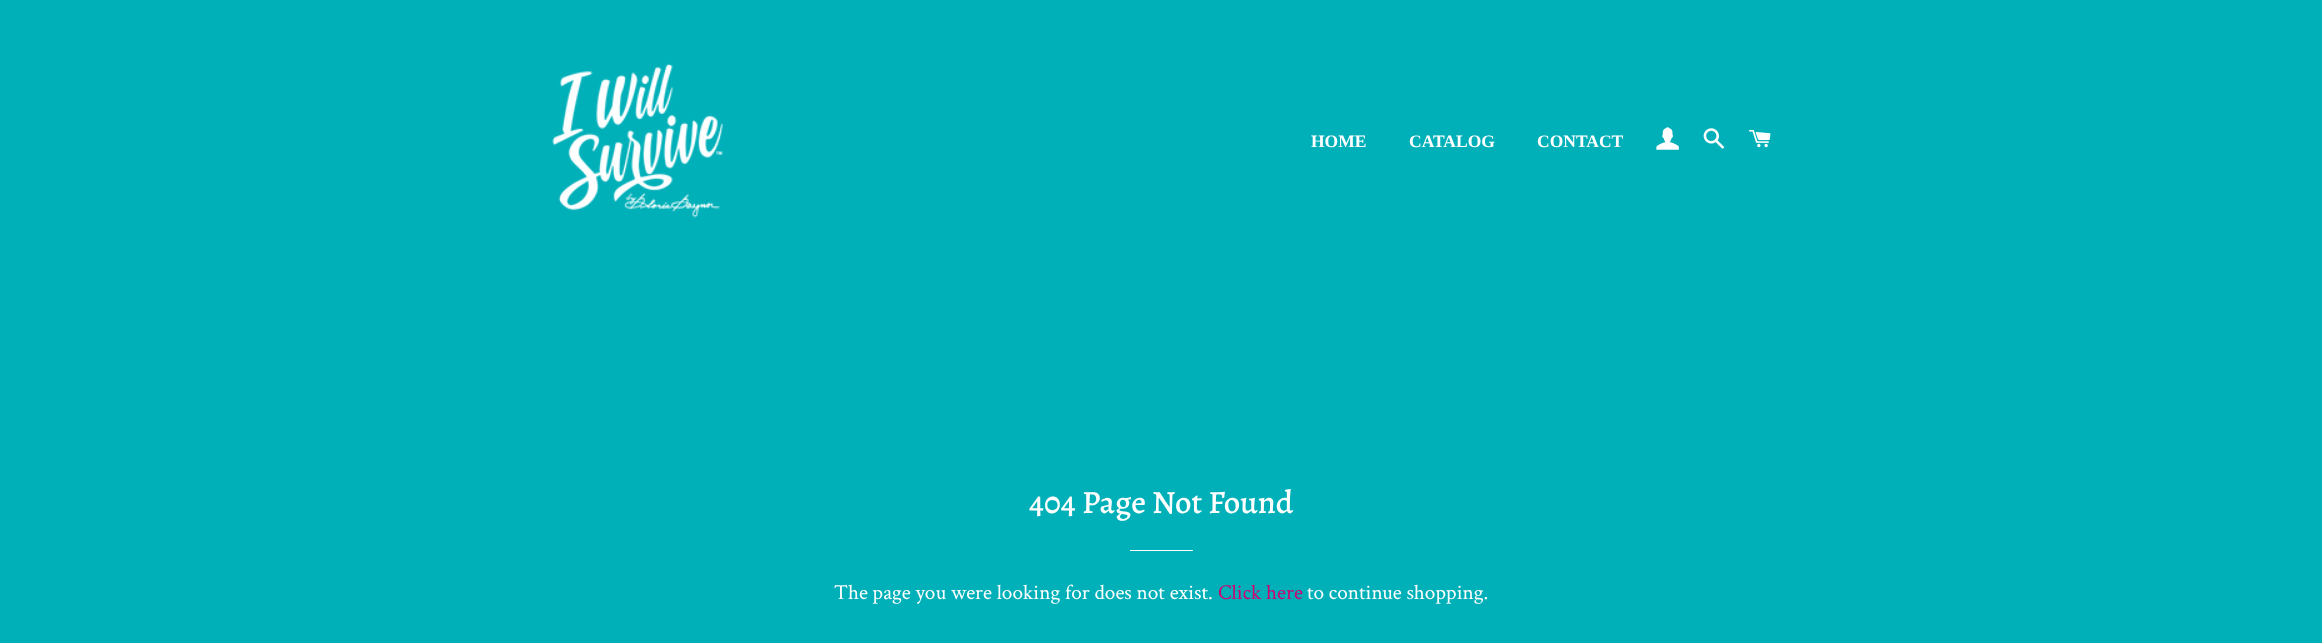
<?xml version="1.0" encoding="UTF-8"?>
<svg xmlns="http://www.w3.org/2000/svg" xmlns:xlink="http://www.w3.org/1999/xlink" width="2322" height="643">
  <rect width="100%" height="100%" fill="#00b0b9" />
  <image x="552" y="63" width="172" height="155" xlink:href="image1.png" />
  <image x="1656" y="127" width="23" height="23" xlink:href="image2.png" />
  <image x="1703" y="128" width="21" height="21" xlink:href="image3.png" />
  <image x="1749" y="129" width="22" height="19" xlink:href="image4.png" />
  <rect x="1130" y="550" width="63" height="1" fill="#ffffff" />
  <text x="1311" y="147" style="font-family: Liberation Serif; font-size: 17.5px; font-weight: bold; fill: #ffffff">HOME</text>
  <text x="1409" y="147" style="font-family: Liberation Serif; font-size: 17.5px; font-weight: bold; fill: #ffffff">CATALOG</text>
  <text x="1537" y="147" style="font-family: Liberation Serif; font-size: 17.5px; font-weight: bold; fill: #ffffff">CONTACT</text>
  <text x="1029" y="513" style="font-family: Alegreya; font-size: 32.5px; font-weight: 500; fill: #ffffff">404 Page Not Found</text>
  <text x="834" y="599" style="font-family: Crimson Text; font-size: 21.25px; fill: #ffffff">The page you were looking for does not exist.</text>
  <text x="1218" y="599" style="font-family: Crimson Text; font-size: 21.25px; fill: #d00070">Click here</text>
  <text x="1307" y="599" style="font-family: Crimson Text; font-size: 21.25px; fill: #ffffff">to continue shopping.</text>
</svg>
